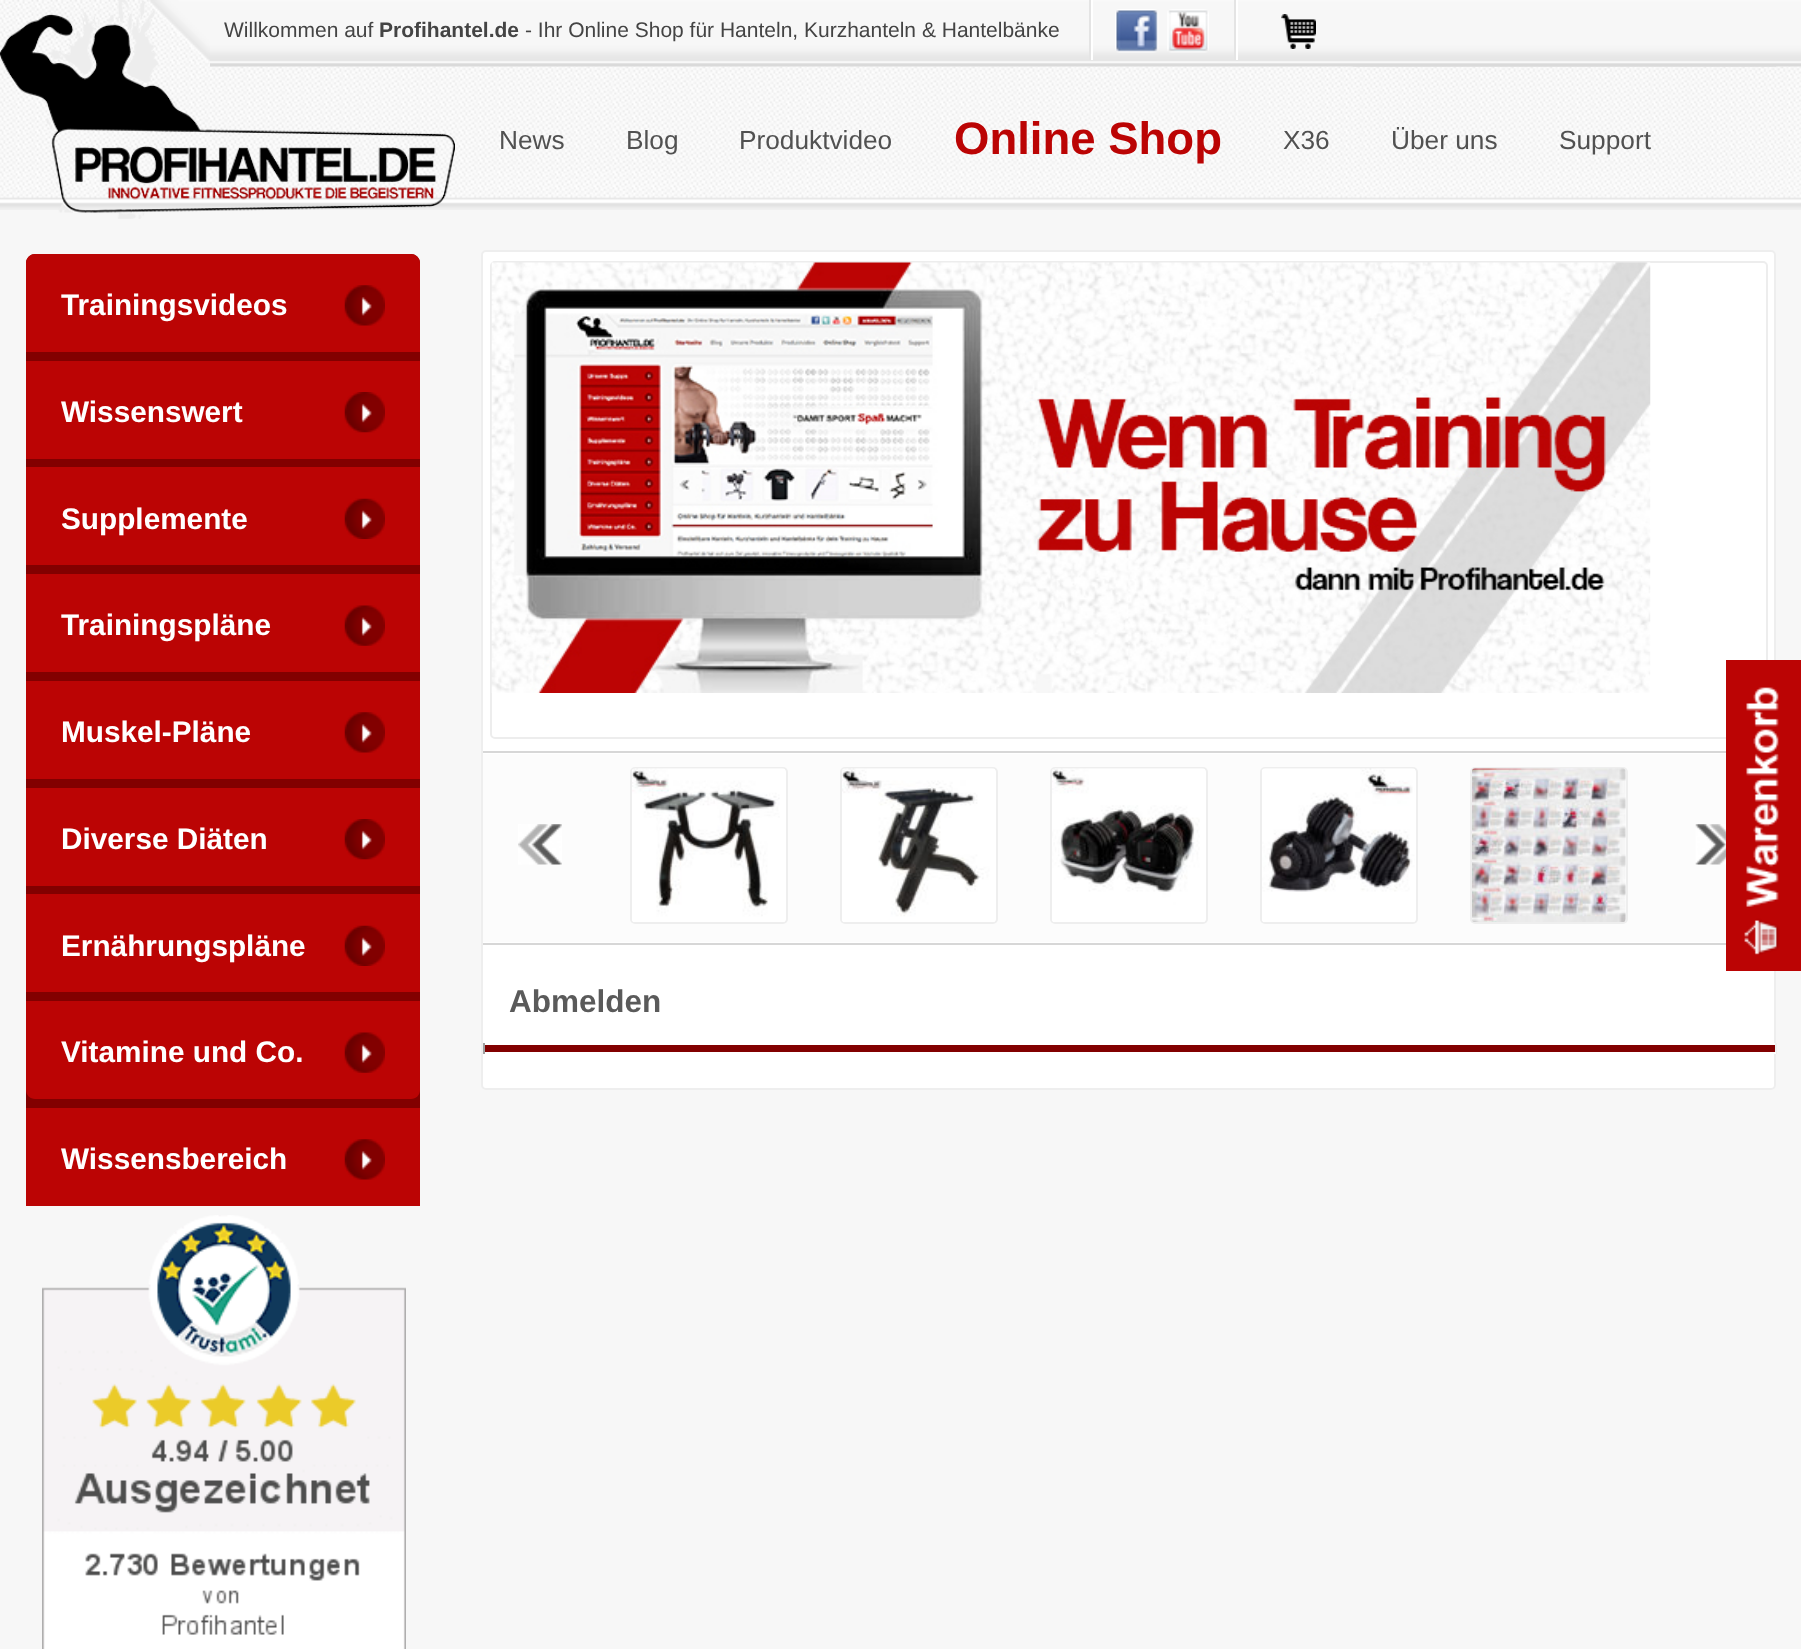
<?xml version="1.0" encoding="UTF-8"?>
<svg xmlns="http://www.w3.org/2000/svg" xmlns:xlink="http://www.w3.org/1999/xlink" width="1801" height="1649">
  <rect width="100%" height="100%" fill="#f7f7f7" />
  <image x="0" y="0" width="1801" height="210" xlink:href="image7.png" />
  <image x="1352" y="0" width="449" height="67" xlink:href="image6.png" />
  <image x="0" y="0" width="455" height="219" xlink:href="image8.png" />
  <image x="210" y="0" width="1566" height="67" xlink:href="image1.png" />
  <image x="149" y="0" width="61" height="63" xlink:href="image2.png" />
  <rect x="1091" width="2" height="60" fill="#ffffff" />
  <rect x="1089" width="2" height="60" fill="#e4e4e4" />
  <image x="1115" y="9" width="44" height="44" xlink:href="image3.png" />
  <image x="1167" y="9" width="42" height="44" xlink:href="image4.png" />
  <rect x="1236" width="2" height="60" fill="#ffffff" />
  <rect x="1234" width="2" height="60" fill="#e4e4e4" />
  <image x="1281" y="14" width="35" height="35" xlink:href="image5.png" />
  <rect x="482" y="251" width="1293" height="838" rx="4" fill="#ffffff" stroke="#eeeeee" stroke-width="2" />
  <rect x="491" y="262" width="1276" height="476" rx="4" fill="none" stroke="#ededed" stroke-width="2" />
  <rect x="1726" y="660" width="75" height="311" fill="#bb0404" />
  <image x="1744" y="687" width="36" height="268" xlink:href="image9.png" />
  <rect x="26" y="254" width="394" height="952" rx="9" fill="#820000" />
  <path d="M 35 254 h 376 c 5 0 9 4 9 9 v 89 h -394 v -89 c 0 -5 4 -9 9 -9 z" fill="#bb0404" />
  <image x="344" y="285" width="41" height="41" xlink:href="image10.png" />
  <rect x="26" y="361" width="394" height="98" fill="#bb0404" />
  <image x="344" y="392" width="41" height="41" xlink:href="image11.png" />
  <rect x="26" y="467" width="394" height="98" fill="#bb0404" />
  <image x="344" y="498" width="41" height="41" xlink:href="image12.png" />
  <rect x="26" y="574" width="394" height="98" fill="#bb0404" />
  <image x="344" y="605" width="41" height="41" xlink:href="image13.png" />
  <rect x="26" y="681" width="394" height="98" fill="#bb0404" />
  <image x="344" y="712" width="41" height="41" xlink:href="image10.png" />
  <rect x="26" y="788" width="394" height="98" fill="#bb0404" />
  <image x="344" y="819" width="41" height="41" xlink:href="image11.png" />
  <rect x="26" y="894" width="394" height="98" fill="#bb0404" />
  <image x="344" y="925" width="41" height="41" xlink:href="image12.png" />
  <path d="M 26 1001 h 394 v 89 c 0 5 -4 9 -9 9 h -376 c -5 0 -9 -4 -9 -9 z" fill="#bb0404" />
  <image x="344" y="1032" width="41" height="41" xlink:href="image13.png" />
  <rect x="26" y="1108" width="394" height="98" fill="#bb0404" />
  <image x="344" y="1139" width="41" height="41" xlink:href="image10.png" />
  <image x="42" y="1215" width="364" height="434" xlink:href="image14.png" />
  <image x="491" y="262" width="1160" height="431" xlink:href="image15.png" />
  <rect x="483" y="751" width="1243" height="2" fill="#d7d7d7" />
  <rect x="483" y="754" width="1243" height="188" fill="#fcfcfc" />
  <image x="518" y="824" width="44" height="41" xlink:href="image16.png" />
  <rect x="631" y="768" width="156" height="155" rx="4" fill="#ffffff" stroke="#eeeeee" stroke-width="2" />
  <image x="632" y="768" width="153" height="154" xlink:href="image17.png" />
  <rect x="841" y="768" width="156" height="155" rx="4" fill="#ffffff" stroke="#eeeeee" stroke-width="2" />
  <image x="842" y="768" width="153" height="154" xlink:href="image18.png" />
  <rect x="1051" y="768" width="156" height="155" rx="4" fill="#ffffff" stroke="#eeeeee" stroke-width="2" />
  <image x="1052" y="768" width="153" height="154" xlink:href="image19.png" />
  <rect x="1261" y="768" width="156" height="155" rx="4" fill="#ffffff" stroke="#eeeeee" stroke-width="2" />
  <image x="1262" y="768" width="153" height="154" xlink:href="image20.png" />
  <rect x="1471" y="768" width="156" height="155" rx="4" fill="#ffffff" stroke="#eeeeee" stroke-width="2" />
  <image x="1472" y="768" width="154" height="154" xlink:href="image21.png" />
  <image x="1695" y="824" width="31" height="41" xlink:href="image22.png" />
  <rect x="483" y="943" width="1243" height="2" fill="#d7d7d7" />
  <rect x="485" y="1045" width="1290" height="7" fill="#820000" />
  <rect x="1774" y="1043" width="2" height="2" fill="#ffffff" />
  <rect x="1775" y="1043" width="2" height="11" fill="#eeeeee" />
  <rect x="1774" y="1052" width="2" height="2" fill="#ffffff" />
  <rect x="483" y="1043" width="2" height="11" fill="#9f9f9f" />
  <text x="224" y="37" style="font-family: Liberation Sans; font-size: 21px; fill: #444444">Willkommen auf</text>
  <text x="379" y="37" style="font-family: Liberation Sans; font-size: 21px; font-weight: bold; fill: #444444">Profihantel.de</text>
  <text x="525" y="37" style="font-family: Liberation Sans; font-size: 21px; fill: #444444">- Ihr Online Shop für Hanteln, Kurzhanteln &amp; Hantelbänke</text>
  <text x="499" y="149" style="font-family: Liberation Sans; font-size: 26.25px; fill: #515151">News</text>
  <text x="626" y="149" style="font-family: Liberation Sans; font-size: 26.25px; fill: #515151">Blog</text>
  <text x="739" y="149" style="font-family: Liberation Sans; font-size: 26.25px; fill: #515151">Produktvideo</text>
  <text x="954" y="154" style="font-family: Liberation Sans; font-size: 45.5px; font-weight: bold; fill: #bb0404">Online Shop</text>
  <text x="1283" y="149" style="font-family: Liberation Sans; font-size: 26.25px; fill: #515151">X36</text>
  <text x="1391" y="149" style="font-family: Liberation Sans; font-size: 26.25px; fill: #515151">Über uns</text>
  <text x="1559" y="149" style="font-family: Liberation Sans; font-size: 26.25px; fill: #515151">Support</text>
  <text x="61" y="315" style="font-family: Liberation Sans; font-size: 29.75px; font-weight: bold; fill: #ffffff">Trainingsvideos</text>
  <text x="61" y="422" style="font-family: Liberation Sans; font-size: 29.75px; font-weight: bold; fill: #ffffff">Wissenswert</text>
  <text x="61" y="529" style="font-family: Liberation Sans; font-size: 29.75px; font-weight: bold; fill: #ffffff">Supplemente</text>
  <text x="61" y="635" style="font-family: Liberation Sans; font-size: 29.75px; font-weight: bold; fill: #ffffff">Trainingspläne</text>
  <text x="61" y="742" style="font-family: Liberation Sans; font-size: 29.75px; font-weight: bold; fill: #ffffff">Muskel-Pläne</text>
  <text x="61" y="849" style="font-family: Liberation Sans; font-size: 29.75px; font-weight: bold; fill: #ffffff">Diverse Diäten</text>
  <text x="61" y="956" style="font-family: Liberation Sans; font-size: 29.75px; font-weight: bold; fill: #ffffff">Ernährungspläne</text>
  <text x="61" y="1062" style="font-family: Liberation Sans; font-size: 29.75px; font-weight: bold; fill: #ffffff">Vitamine und Co.</text>
  <text x="61" y="1169" style="font-family: Liberation Sans; font-size: 29.75px; font-weight: bold; fill: #ffffff">Wissensbereich</text>
  <text x="509" y="1012" style="font-family: Liberation Sans; font-size: 31.5px; font-weight: bold; fill: #5a5a5a">Abmelden</text>
</svg>
